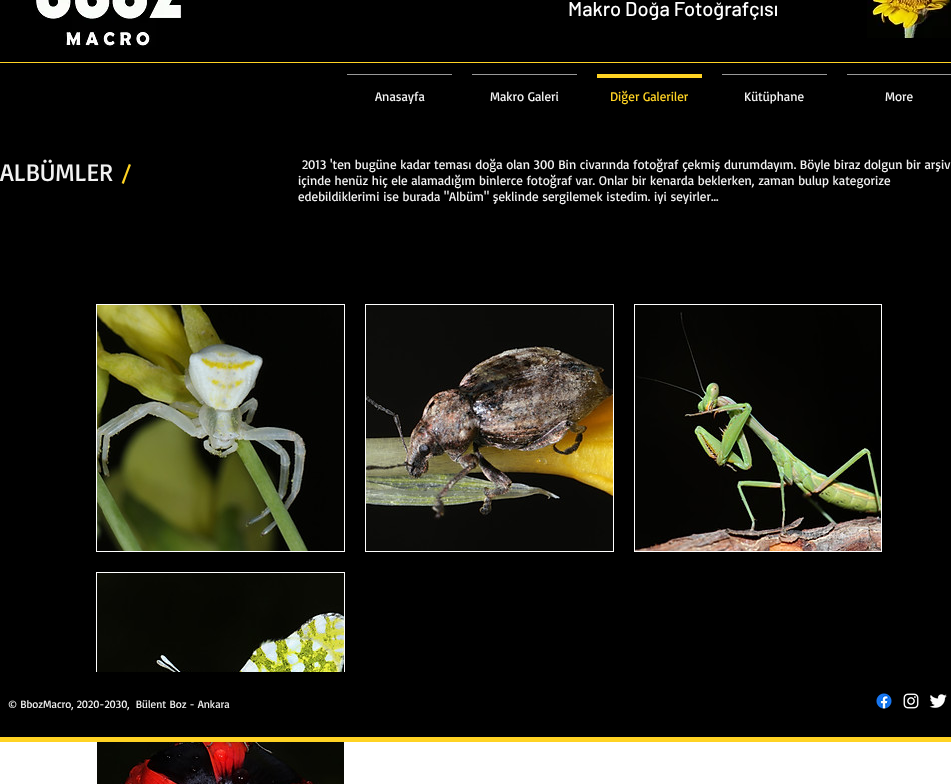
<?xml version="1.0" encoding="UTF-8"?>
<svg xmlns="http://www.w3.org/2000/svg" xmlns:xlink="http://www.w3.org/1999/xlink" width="951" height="784">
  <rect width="100%" height="100%" fill="#ffffff" />
  <rect width="951" height="672" fill="#000000" />
  <image x="36" y="0" width="148" height="47" xlink:href="image1.png" />
  <image x="867" y="0" width="84" height="38" xlink:href="image2.png" />
  <rect y="62" width="951" height="1" fill="#ffd323" />
  <rect x="347" y="74" width="105" height="1" fill="#999999" />
  <rect x="472" y="74" width="105" height="1" fill="#999999" />
  <rect x="597" y="74" width="105" height="4" fill="#ffd323" />
  <rect x="722" y="74" width="105" height="1" fill="#999999" />
  <rect x="847" y="74" width="104" height="1" fill="#999999" />
  <rect x="96.5" y="304.5" width="248" height="247" fill="none" stroke="#ffffff" />
  <image x="97" y="305" width="247" height="246" xlink:href="image3.png" />
  <rect x="365.5" y="304.5" width="248" height="247" fill="none" stroke="#ffffff" />
  <image x="366" y="305" width="247" height="246" xlink:href="image4.png" />
  <rect x="634.5" y="304.5" width="247" height="247" fill="none" stroke="#ffffff" />
  <image x="635" y="305" width="246" height="246" xlink:href="image5.png" />
  <rect x="96.5" y="572.5" width="248" height="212" fill="none" stroke="#ffffff" />
  <image x="97" y="573" width="247" height="211" xlink:href="image6.png" />
  <rect y="672" width="951" height="65" fill="#000000" />
  <rect y="737" width="951" height="5" fill="#ffd323" />
  <image x="876" y="693" width="16" height="16" xlink:href="image7.png" />
  <image x="903" y="693" width="16" height="16" xlink:href="image8.png" />
  <image x="929" y="694" width="18" height="14" xlink:href="image9.png" />
  <text x="568" y="16" style="font-family: Barlow; font-size: 20px; font-weight: 500; fill: #ffffff">Makro Doğa Fotoğrafçısı</text>
  <text x="375" y="101" style="font-family: Basic; font-size: 13px; fill: #f2f2f2">Anasayfa</text>
  <text x="490" y="101" style="font-family: Basic; font-size: 13px; fill: #f2f2f2">Makro Galeri</text>
  <text x="610" y="101" style="font-family: Basic; font-size: 13px; fill: #ffd323">Diğer Galeriler</text>
  <text x="744" y="101" style="font-family: Basic; font-size: 13px; fill: #f2f2f2">Kütüphane</text>
  <text x="885" y="101" style="font-family: Basic; font-size: 13px; fill: #f2f2f2">More</text>
  <text x="0" y="181" style="font-family: Basic; font-size: 25px; fill: #f2f2f2">ALBÜMLER</text>
  <text x="121" y="181" style="font-family: Basic; font-size: 25px; fill: #ffd323">/</text>
  <text x="302" y="169" style="font-family: Basic; font-size: 13px; fill: #f2f2f2">2013 'ten bugüne kadar teması doğa olan 300 Bin civarında fotoğraf çekmiş durumdayım. Böyle biraz dolgun bir arşiv</text>
  <text x="298" y="185" style="font-family: Basic; font-size: 13px; fill: #f2f2f2">içinde henüz hiç ele alamadığım binlerce fotoğraf var. Onlar bir kenarda beklerken, zaman bulup kategorize</text>
  <text x="298" y="201" style="font-family: Basic; font-size: 13px; fill: #f2f2f2">edebildiklerimi ise burada "Albüm" şeklinde sergilemek istedim. iyi seyirler...</text>
  <text x="8" y="708" style="font-family: Basic; font-size: 11px; fill: #f2f2f2" xml:space="preserve">© BbozMacro, 2020-2030,  Bülent Boz - Ankara</text>
</svg>
